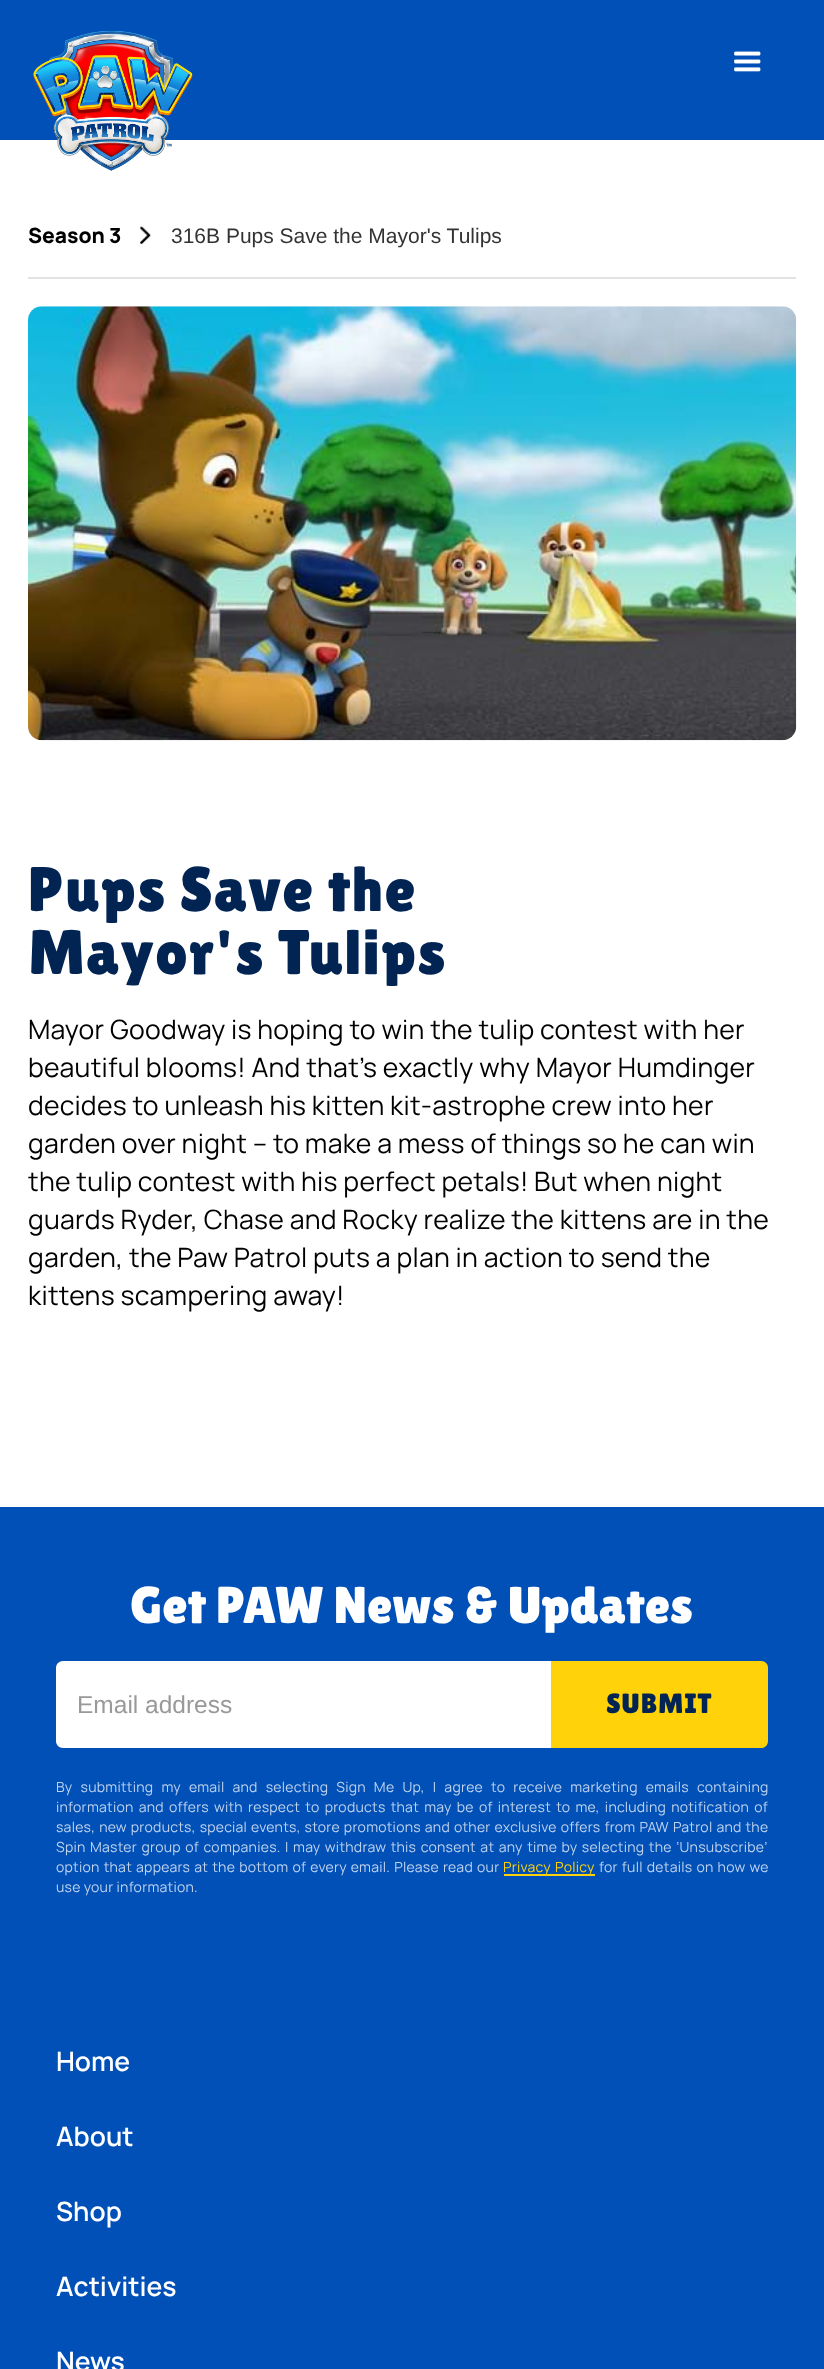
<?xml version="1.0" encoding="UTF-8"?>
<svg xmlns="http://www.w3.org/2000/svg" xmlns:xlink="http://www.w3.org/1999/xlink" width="824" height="2369">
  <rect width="100%" height="100%" fill="#ffffff" />
  <rect width="824" height="140" fill="#0050b7" />
  <image x="33" y="30" width="160" height="141" xlink:href="image1.png" />
  <image x="734" y="51" width="27" height="21" xlink:href="image2.png" />
  <rect x="28" y="277" width="768" height="2" fill="#e2e2e2" />
  <image x="140" y="226" width="11" height="18" xlink:href="image3.png" />
  <image x="28" y="306" width="769" height="435" xlink:href="image4.png" />
  <rect y="1507" width="824" height="862" fill="#0050b8" />
  <path d="M 63 1661 h 488 v 87 h -488 c -4 0 -7 -3 -7 -7 v -73 c 0 -4 3 -7 7 -7 z" fill="#ffffff" />
  <path d="M 551 1661 h 210 c 4 0 7 3 7 7 v 73 c 0 4 -3 7 -7 7 h -210 z" fill="#ffd209" />
  <rect x="504" y="1874" width="91" height="2" fill="#ffd209" />
  <text x="28" y="243" style="font-family: Manrope; font-size: 21px; font-weight: 800; fill: #000000">Season 3</text>
  <text x="171" y="243" style="font-family: Liberation Sans; font-size: 21px; fill: #333333">316B Pups Save the Mayor's Tulips</text>
  <text x="28" y="911" style="font-family: Lilita One; font-size: 63px; letter-spacing: 1.25px; fill: #012453">Pups Save the</text>
  <text x="28" y="974" style="font-family: Lilita One; font-size: 63px; letter-spacing: 1.25px; fill: #012453">Mayor's Tulips</text>
  <text x="28" y="1039" style="font-family: Manrope; font-size: 26.6px; letter-spacing: 0.26px; fill: #000000">Mayor Goodway is hoping to win the tulip contest with her</text>
  <text x="28" y="1077" style="font-family: Manrope; font-size: 26.6px; letter-spacing: 0.26px; fill: #000000">beautiful blooms! And that’s exactly why Mayor Humdinger</text>
  <text x="28" y="1115" style="font-family: Manrope; font-size: 26.6px; letter-spacing: 0.26px; fill: #000000">decides to unleash his kitten kit-astrophe crew into her</text>
  <text x="28" y="1153" style="font-family: Manrope; font-size: 26.6px; letter-spacing: 0.26px; fill: #000000">garden over night – to make a mess of things so he can win</text>
  <text x="28" y="1191" style="font-family: Manrope; font-size: 26.6px; letter-spacing: 0.26px; fill: #000000">the tulip contest with his perfect petals! But when night</text>
  <text x="28" y="1229" style="font-family: Manrope; font-size: 26.6px; letter-spacing: 0.26px; fill: #000000">guards Ryder, Chase and Rocky realize the kittens are in the</text>
  <text x="28" y="1267" style="font-family: Manrope; font-size: 26.6px; letter-spacing: 0.26px; fill: #000000">garden, the Paw Patrol puts a plan in action to send the</text>
  <text x="28" y="1305" style="font-family: Manrope; font-size: 26.6px; letter-spacing: 0.26px; fill: #000000">kittens scampering away!</text>
  <text x="130" y="1623" style="font-family: Lilita One; font-size: 51.75px; fill: #ffffff">Get PAW News &amp; Updates</text>
  <text x="77" y="1713" style="font-family: Liberation Sans; font-size: 24.5px; fill: #999999">Email address</text>
  <text x="606" y="1713" style="font-family: Lilita One; font-size: 28px; letter-spacing: 1px; fill: #012453">SUBMIT</text>
  <text x="56" y="1792" word-spacing="5" style="font-family: Manrope; font-size: 14px; letter-spacing: 0.26px; fill: #bfd3ed">By submitting my email and selecting Sign Me Up, I agree to receive marketing emails containing</text>
  <text x="56" y="1812" word-spacing="2.1" style="font-family: Manrope; font-size: 14px; letter-spacing: 0.26px; fill: #bfd3ed">information and offers with respect to products that may be of interest to me, including notification of</text>
  <text x="56" y="1832" word-spacing="0.9" style="font-family: Manrope; font-size: 14px; letter-spacing: 0.26px; fill: #bfd3ed">sales, new products, special events, store promotions and other exclusive offers from PAW Patrol and the</text>
  <text x="56" y="1852" word-spacing="1.4" style="font-family: Manrope; font-size: 14px; letter-spacing: 0.26px; fill: #bfd3ed">Spin Master group of companies. I may withdraw this consent at any time by selecting the ‘Unsubscribe’</text>
  <text x="56" y="1872" word-spacing="1" style="font-family: Manrope; font-size: 14px; letter-spacing: 0.26px; fill: #bfd3ed">option that appears at the bottom of every email. Please read our</text>
  <text x="503" y="1872" word-spacing="1" style="font-family: Manrope; font-size: 14px; letter-spacing: 0.26px; fill: #ffd209">Privacy Policy</text>
  <text x="599" y="1872" word-spacing="1" style="font-family: Manrope; font-size: 14px; letter-spacing: 0.26px; fill: #bfd3ed">for full details on how we</text>
  <text x="56" y="1892" style="font-family: Manrope; font-size: 14px; letter-spacing: 0.26px; fill: #bfd3ed">use your information.</text>
  <text x="56" y="2071" style="font-family: Manrope; font-size: 26.6px; font-weight: 600; fill: #ffffff">Home</text>
  <text x="56" y="2146" style="font-family: Manrope; font-size: 26.6px; font-weight: 600; fill: #ffffff">About</text>
  <text x="56" y="2221" style="font-family: Manrope; font-size: 26.6px; font-weight: 600; fill: #ffffff">Shop</text>
  <text x="56" y="2296" style="font-family: Manrope; font-size: 26.6px; font-weight: 600; fill: #ffffff">Activities</text>
  <text x="56" y="2371" style="font-family: Manrope; font-size: 26.6px; font-weight: 600; fill: #ffffff">News</text>
</svg>
